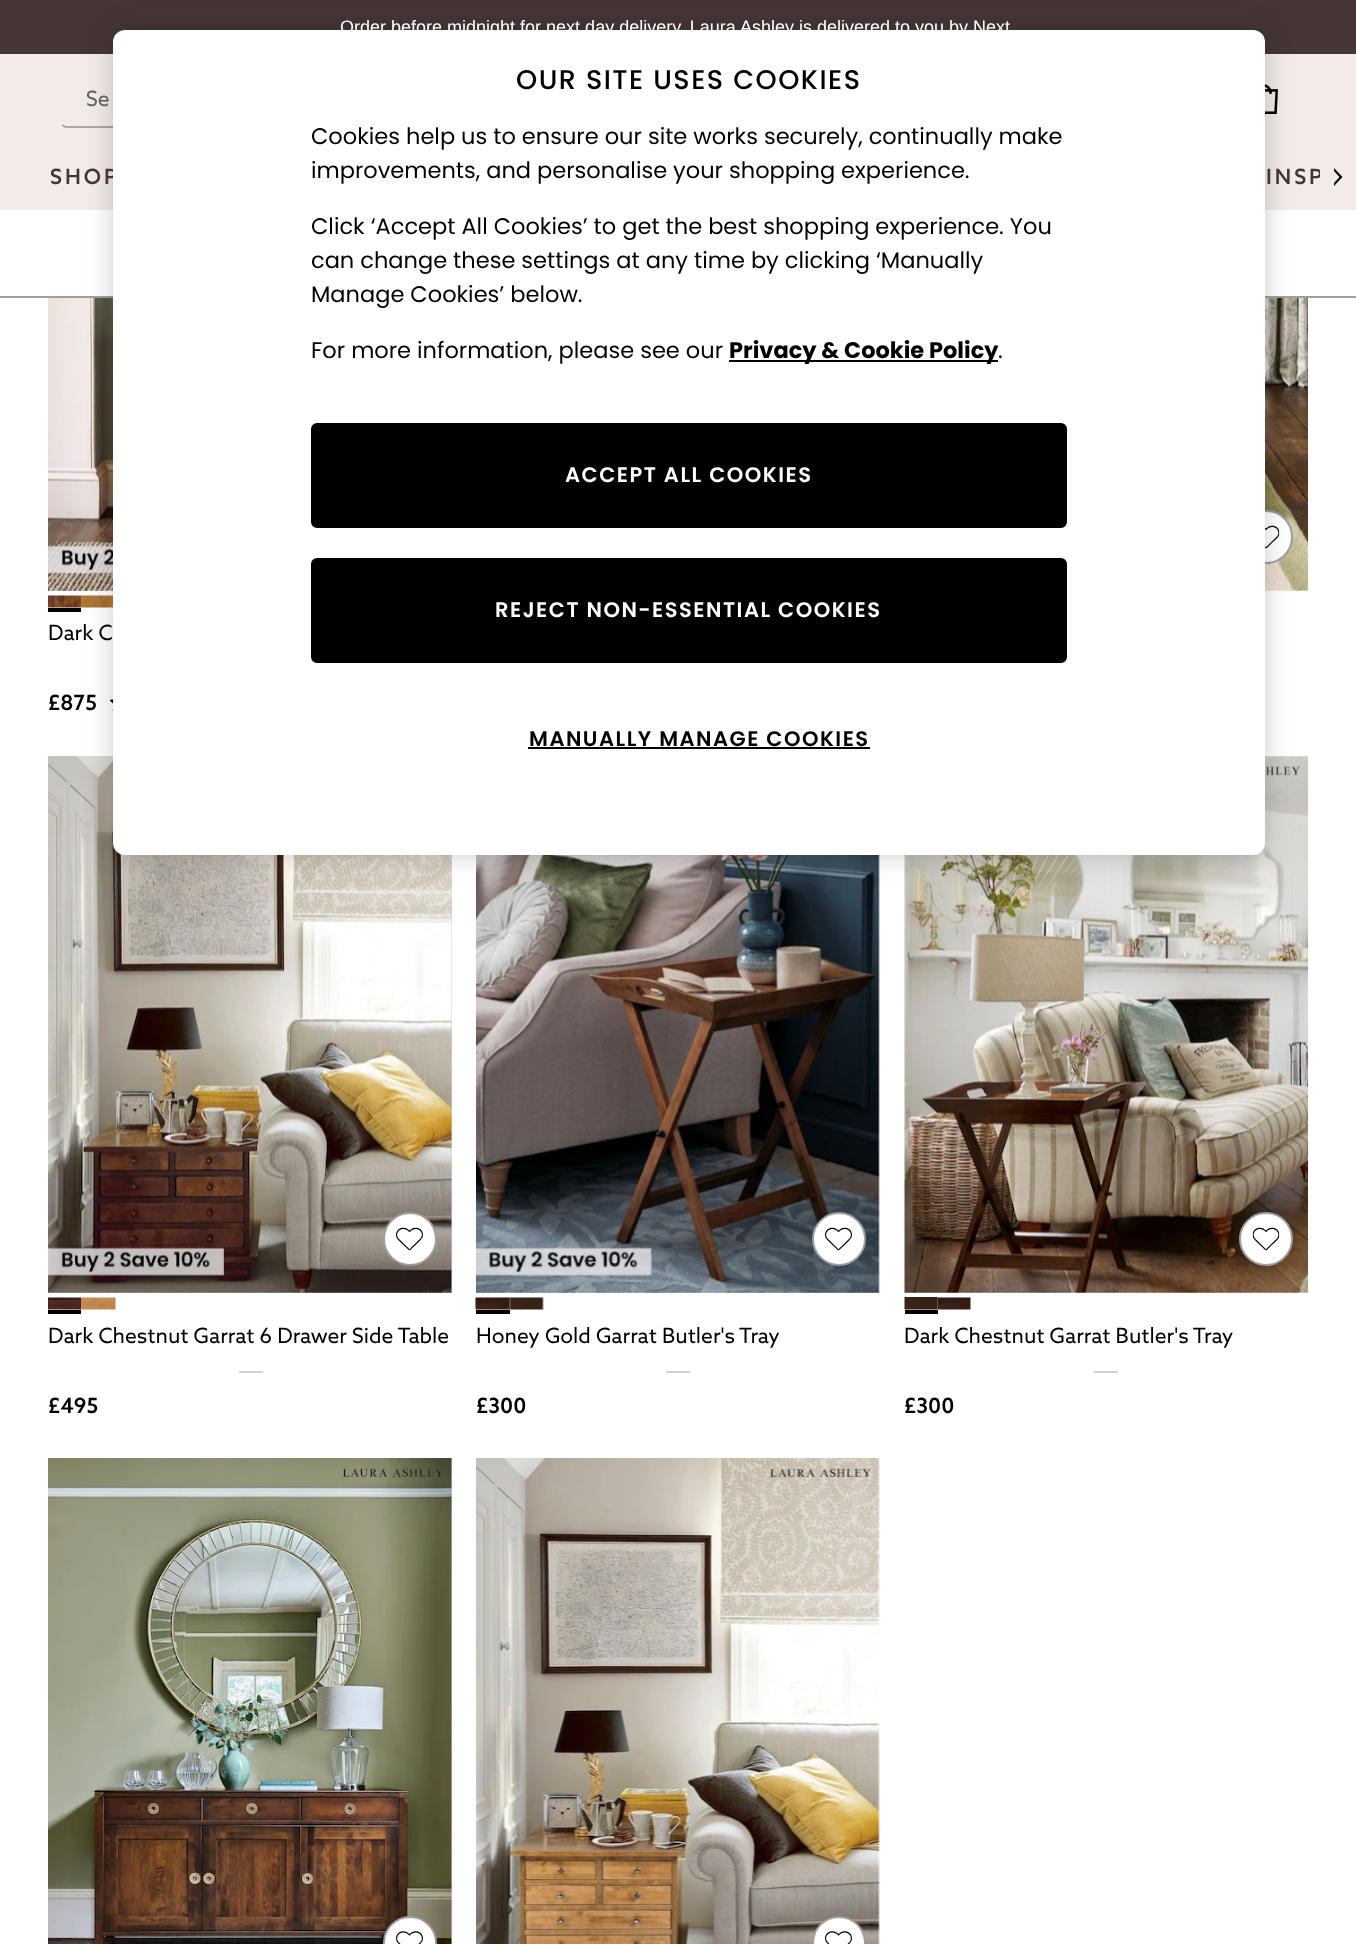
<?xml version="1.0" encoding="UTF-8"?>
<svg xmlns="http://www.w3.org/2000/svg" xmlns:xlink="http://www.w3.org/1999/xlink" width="1356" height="1944">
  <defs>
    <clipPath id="clip1"><rect x="1334" y="168" width="10" height="18" /></clipPath>
  </defs>
  <rect width="100%" height="100%" fill="#ffffff" />
  <rect width="1356" height="54" fill="#453536" />
  <rect y="54" width="1356" height="156" fill="#f2ebe7" />
  <path d="M 360.5 125 c -1 1 -2 2 -3.5 2 h -291 c -1.5 0 -2.5 -1 -3.5 -2" fill="none" stroke="#949494" stroke-width="1.5" />
  <image x="1265" y="84" width="13" height="30" xlink:href="image1.png" />
  <g clip-path="url(#clip1)">
    <path d="M 1332.5 169.5 l 1.5 -1.5 l 8.5 9 l -8.5 9 l -1.5 -1.5 l 7 -7.5 z" fill="#000000" fill-rule="evenodd" />
  </g>
  <rect y="296" width="1356" height="2" fill="#9e9e9e" />
  <image x="1265" y="298" width="43" height="293" xlink:href="image2.png" />
  <circle cx="1266" cy="537" r="26" fill="#ffffff" stroke="#9e9e9e" stroke-width="2" />
  <image x="1265" y="525" width="15" height="24" xlink:href="image3.png" />
  <image x="48" y="298" width="65" height="293" xlink:href="image4.png" />
  <rect x="48" y="608" width="33" height="4" fill="#000000" />
  <image x="48" y="595" width="33" height="13" xlink:href="image5.png" />
  <image x="81" y="595" width="32" height="13" xlink:href="image6.png" />
  <image x="109" y="699" width="4" height="12" xlink:href="image7.png" />
  <rect x="48" y="756" width="404" height="537" fill="#d1d1d1" />
  <image x="48" y="756" width="404" height="537" xlink:href="image8.png" />
  <rect x="476" y="855" width="403" height="438" fill="#d1d1d1" />
  <image x="476" y="855" width="404" height="438" xlink:href="image12.png" />
  <image x="904" y="756" width="404" height="537" xlink:href="image15.png" />
  <rect x="113" y="30" width="1152" height="825" rx="12" fill="#000000" fill-opacity="0.2" filter="blur(13.5px)" />
  <circle cx="410" cy="1239" r="26" fill="#ffffff" stroke="#9e9e9e" stroke-width="2" />
  <image x="396" y="1227" width="27" height="24" xlink:href="image9.png" />
  <rect x="48" y="1310" width="33" height="4" fill="#000000" />
  <image x="48" y="1297" width="33" height="13" xlink:href="image10.png" />
  <image x="81" y="1297" width="35" height="13" xlink:href="image11.png" />
  <rect x="239" y="1371" width="24" height="2" fill="#d1d1d1" />
  <circle cx="839" cy="1239" r="26" fill="#ffffff" stroke="#9e9e9e" stroke-width="2" />
  <image x="825" y="1227" width="27" height="24" xlink:href="image9.png" />
  <rect x="476" y="1310" width="34" height="4" fill="#000000" />
  <image x="475" y="1297" width="36" height="13" xlink:href="image13.png" />
  <image x="509" y="1297" width="35" height="13" xlink:href="image14.png" />
  <rect x="666" y="1371" width="24" height="2" fill="#d1d1d1" />
  <circle cx="1266" cy="1239" r="26" fill="#ffffff" stroke="#9e9e9e" stroke-width="2" />
  <image x="1252" y="1227" width="28" height="24" xlink:href="image16.png" />
  <rect x="905" y="1310" width="33" height="4" fill="#000000" />
  <image x="904" y="1297" width="34" height="13" xlink:href="image17.png" />
  <image x="937" y="1297" width="34" height="13" xlink:href="image18.png" />
  <rect x="1094" y="1371" width="24" height="2" fill="#d1d1d1" />
  <rect x="451" y="1458" width="1" height="486" fill="#d1d1d1" />
  <image x="48" y="1458" width="404" height="486" xlink:href="image19.png" />
  <circle cx="410" cy="1943" r="26" fill="#ffffff" stroke="#9e9e9e" stroke-width="2" />
  <image x="396" y="1931" width="27" height="13" xlink:href="image20.png" />
  <image x="476" y="1458" width="404" height="486" xlink:href="image21.png" />
  <circle cx="839" cy="1943" r="26" fill="#ffffff" stroke="#9e9e9e" stroke-width="2" />
  <image x="825" y="1931" width="27" height="13" xlink:href="image20.png" />
  <text x="340" y="33" style="font-family: Liberation Sans; font-size: 18px; fill: #ffffff">Order before midnight for next day delivery. Laura Ashley is delivered to you by Next.</text>
  <text x="86" y="106" style="font-family: 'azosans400'; font-size: 21px; fill: #616161">Se</text>
  <text x="50" y="184" style="font-family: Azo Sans; font-size: 21px; font-weight: 600; letter-spacing: 3px; fill: #453536">SHOP</text>
  <text x="1266" y="184" style="font-family: Azo Sans; font-size: 21px; font-weight: 600; letter-spacing: 3px; fill: #453536">INSP</text>
  <rect x="1320" y="170" width="2" height="8" fill="#f2ebe7" />
  <rect x="113" y="30" width="1152" height="825" rx="12" fill="#ffffff" />
  <text x="516" y="89" style="font-family: Poppins; font-size: 27px; font-weight: 500; letter-spacing: 1.5px; fill: #000000">OUR SITE USES COOKIES</text>
  <text x="311" y="144" style="font-family: Poppins; font-size: 22.5px; fill: #000000">Cookies help us to ensure our site works securely, continually make</text>
  <text x="311" y="178" style="font-family: Poppins; font-size: 22.5px; fill: #000000">improvements, and personalise your shopping experience.</text>
  <text x="311" y="234" style="font-family: Poppins; font-size: 22.5px; fill: #000000">Click ‘Accept All Cookies’ to get the best shopping experience. You</text>
  <text x="311" y="268" style="font-family: Poppins; font-size: 22.5px; fill: #000000">can change these settings at any time by clicking ‘Manually</text>
  <text x="311" y="302" style="font-family: Poppins; font-size: 22.5px; fill: #000000">Manage Cookies’ below.</text>
  <text x="311" y="358" style="font-family: Poppins; font-size: 22.5px; fill: #000000">For more information, please see our</text>
  <rect x="729" y="360" width="269" height="2" fill="#000000" />
  <text x="729" y="358" style="font-family: Poppins; font-size: 22.5px; font-weight: bold; fill: #000000">Privacy &amp; Cookie Policy</text>
  <text x="998" y="358" style="font-family: Poppins; font-size: 22.5px; fill: #000000">.</text>
  <rect x="312" y="424" width="754" height="103" rx="5" fill="#000000" stroke="#000000" stroke-width="2" />
  <text x="565" y="482" style="font-family: Poppins; font-size: 21px; font-weight: 600; letter-spacing: 1.5px; fill: #ffffff">ACCEPT ALL COOKIES</text>
  <rect x="312" y="559" width="754" height="103" rx="5" fill="#000000" stroke="#000000" stroke-width="2" />
  <text x="495" y="617" style="font-family: Poppins; font-size: 21px; font-weight: 600; letter-spacing: 1.5px; fill: #ffffff">REJECT NON-ESSENTIAL COOKIES</text>
  <text x="529" y="746" style="font-family: Poppins; font-size: 21px; font-weight: 600; letter-spacing: 1.5px; fill: #000000">MANUALLY MANAGE COOKIES</text>
  <rect x="528" y="747" width="342" height="2" fill="#000000" />
  <text x="48" y="640" style="font-family: 'azosans400'; font-size: 21px; fill: #000000">Dark C</text>
  <text x="48" y="710" style="font-family: Azo Sans; font-size: 21px; font-weight: 600; fill: #000000">£875</text>
  <text x="48" y="1343" style="font-family: 'azosans400'; font-size: 21px; fill: #000000">Dark Chestnut Garrat 6 Drawer Side Table</text>
  <text x="48" y="1413" style="font-family: Azo Sans; font-size: 21px; font-weight: 600; fill: #000000">£495</text>
  <text x="476" y="1343" style="font-family: 'azosans400'; font-size: 21px; fill: #000000">Honey Gold Garrat Butler's Tray</text>
  <text x="476" y="1413" style="font-family: Azo Sans; font-size: 21px; font-weight: 600; fill: #000000">£300</text>
  <text x="904" y="1343" style="font-family: 'azosans400'; font-size: 21px; fill: #000000">Dark Chestnut Garrat Butler's Tray</text>
  <text x="904" y="1413" style="font-family: Azo Sans; font-size: 21px; font-weight: 600; fill: #000000">£300</text>
</svg>
